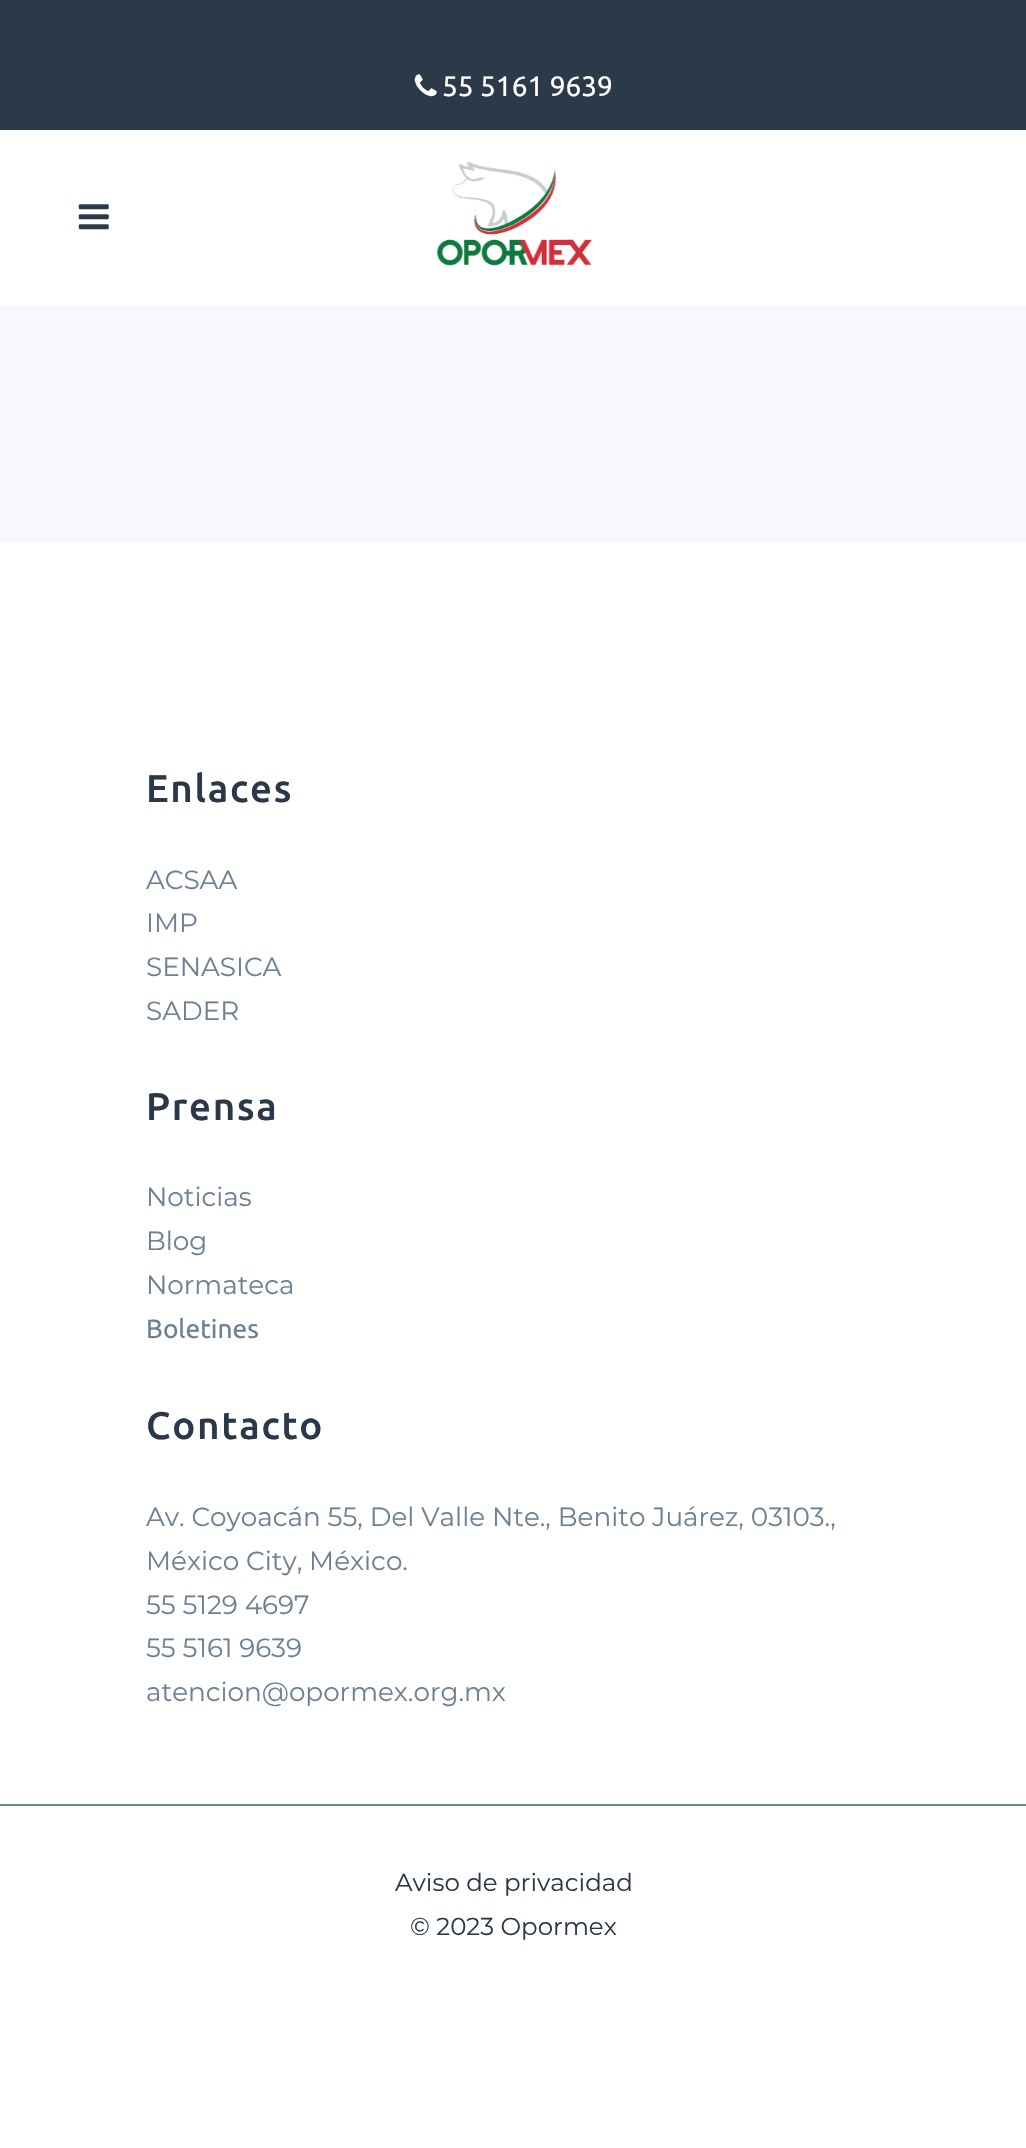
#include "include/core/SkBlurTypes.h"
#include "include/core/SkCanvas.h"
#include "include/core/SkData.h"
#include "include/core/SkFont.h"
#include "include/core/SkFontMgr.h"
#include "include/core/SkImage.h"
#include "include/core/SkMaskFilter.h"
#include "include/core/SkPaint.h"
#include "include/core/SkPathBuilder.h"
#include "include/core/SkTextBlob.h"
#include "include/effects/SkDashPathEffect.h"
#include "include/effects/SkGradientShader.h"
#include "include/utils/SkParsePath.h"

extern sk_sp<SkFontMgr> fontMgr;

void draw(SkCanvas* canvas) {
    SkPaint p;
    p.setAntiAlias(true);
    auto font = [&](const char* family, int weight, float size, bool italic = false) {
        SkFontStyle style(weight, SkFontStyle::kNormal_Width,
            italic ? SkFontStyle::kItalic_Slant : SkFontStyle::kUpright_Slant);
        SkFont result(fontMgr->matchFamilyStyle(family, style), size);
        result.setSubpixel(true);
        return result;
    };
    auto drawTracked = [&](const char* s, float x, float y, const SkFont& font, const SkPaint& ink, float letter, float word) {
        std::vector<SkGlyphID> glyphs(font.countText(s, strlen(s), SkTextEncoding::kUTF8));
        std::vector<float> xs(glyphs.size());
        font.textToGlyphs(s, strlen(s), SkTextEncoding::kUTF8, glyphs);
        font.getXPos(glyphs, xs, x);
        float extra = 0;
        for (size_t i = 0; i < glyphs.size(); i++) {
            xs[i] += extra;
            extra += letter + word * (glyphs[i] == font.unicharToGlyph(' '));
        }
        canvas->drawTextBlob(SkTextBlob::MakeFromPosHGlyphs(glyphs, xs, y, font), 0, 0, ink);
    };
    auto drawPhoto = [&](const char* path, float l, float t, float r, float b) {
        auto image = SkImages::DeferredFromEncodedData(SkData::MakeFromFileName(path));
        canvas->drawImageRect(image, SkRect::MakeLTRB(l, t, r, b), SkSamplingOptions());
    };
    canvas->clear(0xFFF7F9FC);
    p.setColor(0xFF2C3949);
    canvas->drawRect(SkRect::MakeLTRB(0, 0, 1026, 130), p);
    drawPhoto("media/1.png", 414, 74, 437, 97);
    auto font1 = font("Ubuntu", 400, 28);
    p.setColor(0xFFFFFFFF);
    canvas->drawString("55 5161 9639", 442, 96, font1, p);
    canvas->drawRect(SkRect::MakeLTRB(0, 130, 1026, 305), p);
    drawPhoto("media/2.png", 78, 204, 109, 230);
    drawPhoto("media/3.png", 436, 161, 592, 266);
    canvas->drawRect(SkRect::MakeLTRB(0, 543, 1026, 1804), p);
    auto font2 = font("Ubuntu", 500, 38.5f);
    p.setColor(0xFF2B3849);
    drawTracked("Enlaces", 146, 802, font2, p, 1.75f, 0);
    auto font3 = font("Montserrat", 400, 26.25f);
    p.setColor(0xFF6C8194);
    {
        const struct { const char* s; float x, y; } items[] = {
            {"ACSAA", 146, 889},
            {"IMP", 146, 932},
            {"SENASICA", 146, 976},
            {"SADER", 146, 1020},
        };
        for (auto [s, x, y] : items) {
            canvas->drawString(s, x, y, font3, p);
        }
    }
    p.setColor(0xFF2B3849);
    drawTracked("Prensa", 146, 1120, font2, p, 1.75f, 0);
    p.setColor(0xFF6C8194);
    {
        const struct { const char* s; float x, y; } items[] = {
            {"Noticias", 146, 1206},
            {"Blog", 146, 1250},
            {"Normateca", 146, 1294},
        };
        for (auto [s, x, y] : items) {
            canvas->drawString(s, x, y, font3, p);
        }
    }
    auto font4 = font("Ubuntu", 400, 26.25f);
    canvas->drawString("Boletines", 146, 1338, font4, p);
    p.setColor(0xFF2B3849);
    drawTracked("Contacto", 146, 1439, font2, p, 1.75f, 0);
    p.setColor(0xFF6C8194);
    {
        const struct { const char* s; float x, y; } items[] = {
            {"Av. Coyoacán 55, Del Valle Nte., Benito Juárez, 03103.,", 146, 1526},
            {"México City, México.", 146, 1570},
            {"55 5129 4697", 146, 1614},
            {"55 5161 9639", 146, 1657},
            {"atencion@opormex.org.mx", 146, 1701},
        };
        for (auto [s, x, y] : items) {
            canvas->drawString(s, x, y, font3, p);
        }
    }
    p.setColor(0xFFFFFFFF);
    canvas->drawRect(SkRect::MakeLTRB(0, 1806, 1026, 2148), p);
    p.setColor(0xFF6D878C);
    canvas->drawRect(SkRect::MakeLTRB(0, 1804, 1026, 1806), p);
    auto font5 = font("Montserrat", 400, 24.5f);
    p.setColor(0xFF2B3849);
    canvas->drawString("Aviso de privacidad", 395, 1891, font5, p);
    canvas->drawString("© 2023 Opormex", 410, 1935, font5, p);
}
